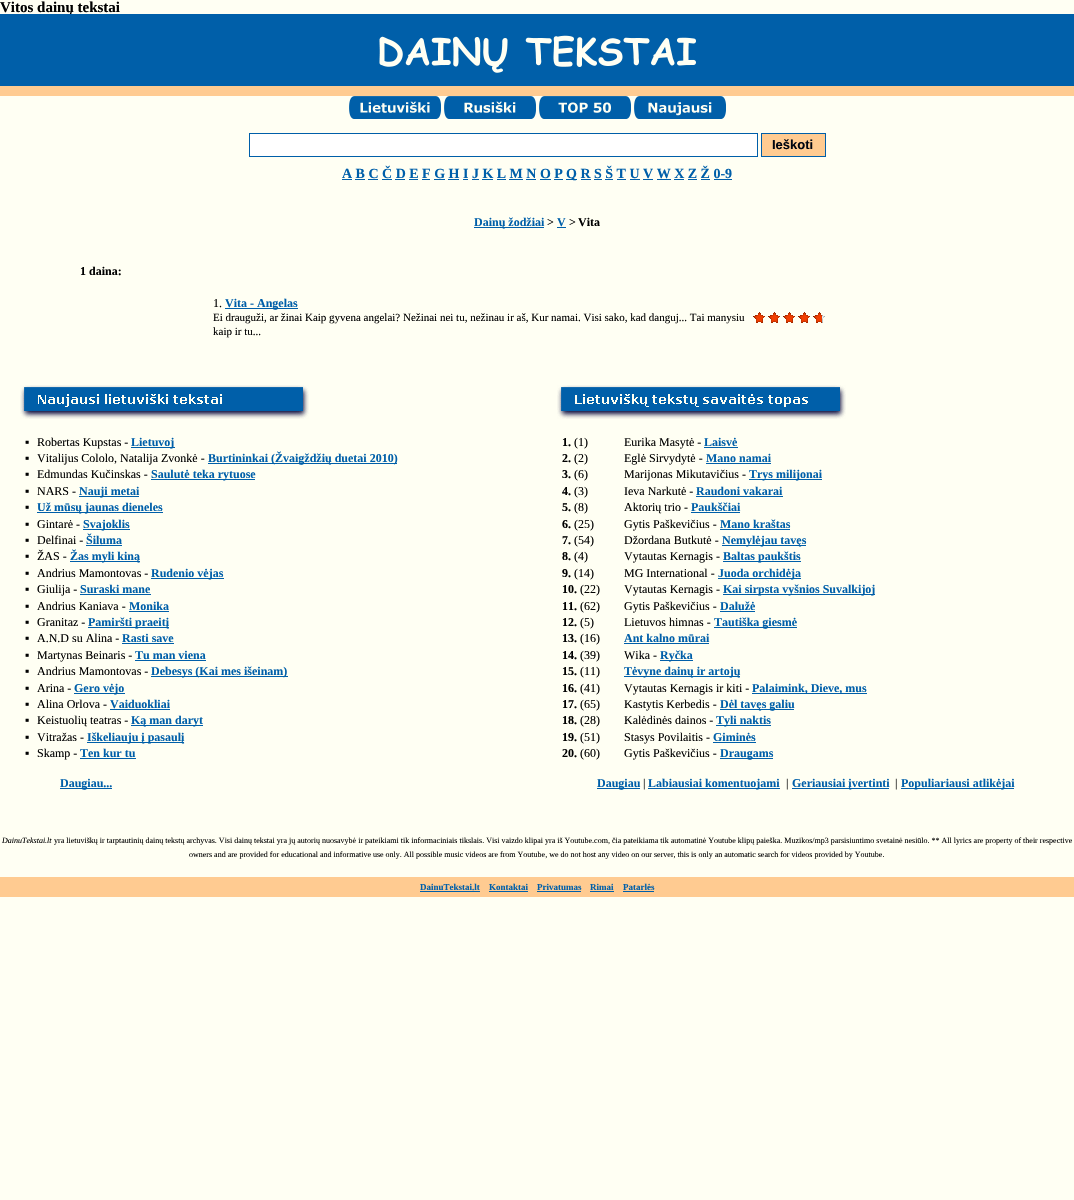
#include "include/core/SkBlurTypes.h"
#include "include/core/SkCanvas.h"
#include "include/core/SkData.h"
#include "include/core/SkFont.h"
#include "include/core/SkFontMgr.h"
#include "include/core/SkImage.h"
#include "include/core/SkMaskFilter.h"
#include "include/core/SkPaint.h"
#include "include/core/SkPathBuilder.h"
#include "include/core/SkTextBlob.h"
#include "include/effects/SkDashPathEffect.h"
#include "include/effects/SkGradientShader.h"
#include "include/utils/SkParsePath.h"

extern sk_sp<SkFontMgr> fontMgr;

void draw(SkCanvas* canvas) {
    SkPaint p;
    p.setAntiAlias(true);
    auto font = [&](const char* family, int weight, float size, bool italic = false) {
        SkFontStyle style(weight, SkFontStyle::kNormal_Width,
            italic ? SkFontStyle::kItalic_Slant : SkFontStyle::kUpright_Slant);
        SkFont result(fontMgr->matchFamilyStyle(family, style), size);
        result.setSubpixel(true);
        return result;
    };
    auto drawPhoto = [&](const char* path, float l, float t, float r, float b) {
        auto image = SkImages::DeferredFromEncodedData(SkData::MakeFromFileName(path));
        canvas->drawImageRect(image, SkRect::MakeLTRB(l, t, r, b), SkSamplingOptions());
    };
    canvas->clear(0xFFFFFFF3);
    auto font1 = font("Liberation Serif", 700, 15);
    p.setColor(0xFF000000);
    canvas->drawString("Vitos dainų tekstai", 0, 12, font1, p);
    p.setColor(0xFF005FA9);
    canvas->drawRect(SkRect::MakeLTRB(0, 14, 1074, 86), p);
    drawPhoto("media/1.png", 379, 35, 696, 73);
    p.setColor(0xFFFFCB91);
    canvas->drawRect(SkRect::MakeLTRB(0, 86, 1074, 96), p);
    drawPhoto("media/2.png", 349, 96, 441, 119);
    drawPhoto("media/3.png", 444, 96, 536, 119);
    drawPhoto("media/4.png", 539, 96, 631, 119);
    drawPhoto("media/5.png", 634, 96, 726, 119);
    p.setColor(0xFFFFFFFF);
    canvas->drawRect(SkRect::MakeLTRB(249.5f, 133.5f, 757.5f, 156.5f), p);
    p.setStyle(SkPaint::kStroke_Style);
    p.setStrokeWidth(1);
    p.setColor(0xFF005FA9);
    canvas->drawRect(SkRect::MakeLTRB(249.5f, 133.5f, 757.5f, 156.5f), p);
    p.setStyle(SkPaint::kFill_Style);
    p.setColor(0xFFFFCB91);
    canvas->drawRect(SkRect::MakeLTRB(761.5f, 133.5f, 825.5f, 156.5f), p);
    p.setStyle(SkPaint::kStroke_Style);
    p.setColor(0xFF005FA9);
    canvas->drawRect(SkRect::MakeLTRB(761.5f, 133.5f, 825.5f, 156.5f), p);
    auto font2 = font("Liberation Sans", 700, 13);
    p.setStyle(SkPaint::kFill_Style);
    p.setColor(0xFF000511);
    canvas->drawString("Ieškoti", 772, 149, font2, p);
    auto font3 = font("Liberation Serif", 700, 14);
    p.setColor(0xFF005FA9);
    canvas->drawString("A B C Č D E F G H I J K L M N O P", 342, 178, font3, p);
    canvas->drawRect(SkRect::MakeLTRB(342, 179, 352, 180), p);
    canvas->drawRect(SkRect::MakeLTRB(566, 179, 577, 180), p);
    canvas->drawString("Q R S Š T U V W X Z Ž 0-9", 566, 178, font3, p);
    {
        const struct { float l, t, r, b; SkColor color; } items[] = {
            {355, 179, 365, 180, 0xFF005FA9},
            {368, 179, 378, 180, 0xFF005FA9},
            {382, 179, 392, 180, 0xFF005FA9},
            {395, 179, 405, 180, 0xFF005FA9},
            {409, 179, 418, 180, 0xFF005FA9},
            {422, 179, 430, 180, 0xFF005FA9},
            {434, 179, 445, 180, 0xFF005FA9},
            {448, 179, 459, 180, 0xFF005FA9},
            {463, 179, 468, 180, 0xFF005FA9},
            {472, 179, 479, 180, 0xFF005FA9},
            {482, 179, 493, 180, 0xFF005FA9},
            {497, 179, 506, 180, 0xFF005FA9},
            {509, 179, 523, 180, 0xFF005FA9},
            {526, 179, 536, 180, 0xFF005FA9},
            {540, 179, 551, 180, 0xFF005FA9},
            {554, 179, 563, 180, 0xFF005FA9},
            {581, 179, 591, 180, 0xFF005FA9},
            {594, 179, 602, 180, 0xFF005FA9},
            {605, 179, 613, 180, 0xFF005FA9},
            {617, 179, 626, 180, 0xFF005FA9},
            {630, 179, 640, 180, 0xFF005FA9},
            {643, 179, 653, 180, 0xFF005FA9},
            {657, 179, 671, 180, 0xFF005FA9},
            {674, 179, 684, 180, 0xFF005FA9},
            {688, 179, 697, 180, 0xFF005FA9},
            {701, 179, 710, 180, 0xFF005FA9},
            {714, 179, 732, 180, 0xFF005FA9},
            {474, 227, 544, 228, 0xFF005FA9},
        };
        for (auto [l, t, r, b, color] : items) {
            p.setColor(color);
            canvas->drawRect(SkRect::MakeLTRB(l, t, r, b), p);
        }
    }
    auto font4 = font("Liberation Serif", 700, 12);
    canvas->drawString("Dainų žodžiai", 474, 226, font4, p);
    auto font5 = font("Liberation Serif", 400, 12);
    p.setColor(0xFF000000);
    canvas->drawString(">", 547, 226, font5, p);
    p.setColor(0xFF005FA9);
    canvas->drawString("V", 557, 226, font4, p);
    canvas->drawRect(SkRect::MakeLTRB(557, 227, 566, 228), p);
    p.setColor(0xFF000000);
    canvas->drawString(">", 569, 226, font5, p);
    canvas->drawString("Vita", 578, 226, font4, p);
    canvas->drawString("1 daina:", 80, 275, font4, p);
    canvas->drawString("1.", 213, 307, font5, p);
    p.setColor(0xFF005FA9);
    canvas->drawRect(SkRect::MakeLTRB(225, 308, 298, 309), p);
    canvas->drawString("Vita - Angelas", 225, 307, font4, p);
    auto font6 = font("Liberation Serif", 400, 11);
    p.setColor(0xFF000000);
    canvas->drawString("Ei drauguži, ar žinai Kaip gyvena angelai? Nežinai nei tu, nežinau ir aš, Kur namai. Visi sako, kad danguj... Tai manysiu", 213, 321, font6, p);
    canvas->drawString("kaip ir tu...", 213, 335, font6, p);
    drawPhoto("media/6.png", 822, 315, 825, 323);
    drawPhoto("media/7.png", 753, 312, 822, 323);
    drawPhoto("media/8.png", 20, 385, 309, 419);
    canvas->drawString("▪", 25, 446, font4, p);
    canvas->drawString("Robertas Kupstas -", 37, 446, font5, p);
    p.setColor(0xFF005FA9);
    canvas->drawRect(SkRect::MakeLTRB(131, 447, 175, 448), p);
    canvas->drawString("Lietuvoj", 131, 446, font4, p);
    p.setColor(0xFF000000);
    canvas->drawString("▪", 25, 462, font4, p);
    canvas->drawString("Vitalijus Cololo, Natalija Zvonkė -", 37, 462, font5, p);
    p.setColor(0xFF005FA9);
    canvas->drawRect(SkRect::MakeLTRB(208, 463, 397, 464), p);
    canvas->drawString("Burtininkai (Žvaigždžių duetai 2010)", 208, 462, font4, p);
    p.setColor(0xFF000000);
    canvas->drawString("▪", 25, 478, font4, p);
    canvas->drawString("Edmundas Kučinskas -", 37, 478, font5, p);
    p.setColor(0xFF005FA9);
    canvas->drawRect(SkRect::MakeLTRB(151, 479, 255, 480), p);
    canvas->drawString("Saulutė teka rytuose", 151, 478, font4, p);
    p.setColor(0xFF000000);
    canvas->drawString("▪", 25, 495, font4, p);
    canvas->drawString("NARS -", 37, 495, font5, p);
    p.setColor(0xFF005FA9);
    canvas->drawRect(SkRect::MakeLTRB(79, 496, 139, 497), p);
    canvas->drawString("Nauji metai", 79, 495, font4, p);
    p.setColor(0xFF000000);
    canvas->drawString("▪", 25, 511, font4, p);
    p.setColor(0xFF005FA9);
    canvas->drawRect(SkRect::MakeLTRB(37, 512, 163, 513), p);
    canvas->drawString("Už mūsų jaunas dieneles", 37, 511, font4, p);
    p.setColor(0xFF000000);
    canvas->drawString("▪", 25, 528, font4, p);
    canvas->drawString("Gintarė -", 37, 528, font5, p);
    p.setColor(0xFF005FA9);
    canvas->drawRect(SkRect::MakeLTRB(83, 529, 130, 530), p);
    canvas->drawString("Svajoklis", 83, 528, font4, p);
    p.setColor(0xFF000000);
    canvas->drawString("▪", 25, 544, font4, p);
    canvas->drawString("Delfinai -", 37, 544, font5, p);
    p.setColor(0xFF005FA9);
    canvas->drawString("Šiluma", 86, 544, font4, p);
    canvas->drawRect(SkRect::MakeLTRB(86, 545, 122, 546), p);
    p.setColor(0xFF000000);
    canvas->drawString("▪", 25, 560, font4, p);
    canvas->drawString("ŽAS -", 37, 560, font5, p);
    p.setColor(0xFF005FA9);
    canvas->drawRect(SkRect::MakeLTRB(70, 561, 140, 562), p);
    canvas->drawString("Žas myli kiną", 70, 560, font4, p);
    p.setColor(0xFF000000);
    canvas->drawString("▪", 25, 577, font4, p);
    canvas->drawString("Andrius Mamontovas -", 37, 577, font5, p);
    p.setColor(0xFF005FA9);
    canvas->drawRect(SkRect::MakeLTRB(151, 578, 224, 579), p);
    canvas->drawString("Rudenio vėjas", 151, 577, font4, p);
    p.setColor(0xFF000000);
    canvas->drawString("▪", 25, 593, font4, p);
    canvas->drawString("Giulija -", 37, 593, font5, p);
    p.setColor(0xFF005FA9);
    canvas->drawString("Suraski mane", 80, 593, font4, p);
    canvas->drawRect(SkRect::MakeLTRB(80, 594, 151, 595), p);
    p.setColor(0xFF000000);
    canvas->drawString("▪", 25, 610, font4, p);
    canvas->drawString("Andrius Kaniava -", 37, 610, font5, p);
    p.setColor(0xFF005FA9);
    canvas->drawString("Monika", 129, 610, font4, p);
    canvas->drawRect(SkRect::MakeLTRB(129, 611, 169, 612), p);
    p.setColor(0xFF000000);
    canvas->drawString("▪", 25, 626, font4, p);
    canvas->drawString("Granitaz -", 37, 626, font5, p);
    p.setColor(0xFF005FA9);
    canvas->drawRect(SkRect::MakeLTRB(88, 627, 169, 628), p);
    canvas->drawString("Pamiršti praeitį", 88, 626, font4, p);
    p.setColor(0xFF000000);
    canvas->drawString("▪", 25, 642, font4, p);
    canvas->drawString("A.N.D su Alina -", 37, 642, font5, p);
    p.setColor(0xFF005FA9);
    canvas->drawString("Rasti save", 122, 642, font4, p);
    canvas->drawRect(SkRect::MakeLTRB(122, 643, 174, 644), p);
    p.setColor(0xFF000000);
    canvas->drawString("▪", 25, 659, font4, p);
    canvas->drawString("Martynas Beinaris -", 37, 659, font5, p);
    p.setColor(0xFF005FA9);
    canvas->drawString("Tu man viena", 135, 659, font4, p);
    canvas->drawRect(SkRect::MakeLTRB(135, 660, 206, 661), p);
    p.setColor(0xFF000000);
    canvas->drawString("▪", 25, 675, font4, p);
    canvas->drawString("Andrius Mamontovas -", 37, 675, font5, p);
    p.setColor(0xFF005FA9);
    canvas->drawRect(SkRect::MakeLTRB(151, 676, 288, 677), p);
    canvas->drawString("Debesys (Kai mes išeinam)", 151, 675, font4, p);
    p.setColor(0xFF000000);
    canvas->drawString("▪", 25, 692, font4, p);
    canvas->drawString("Arina -", 37, 692, font5, p);
    p.setColor(0xFF005FA9);
    canvas->drawRect(SkRect::MakeLTRB(74, 693, 125, 694), p);
    canvas->drawString("Gero vėjo", 74, 692, font4, p);
    p.setColor(0xFF000000);
    canvas->drawString("▪", 25, 708, font4, p);
    canvas->drawString("Alina Orlova -", 37, 708, font5, p);
    p.setColor(0xFF005FA9);
    canvas->drawString("Vaiduokliai", 110, 708, font4, p);
    canvas->drawRect(SkRect::MakeLTRB(110, 709, 170, 710), p);
    p.setColor(0xFF000000);
    canvas->drawString("▪", 25, 724, font4, p);
    canvas->drawString("Keistuolių teatras -", 37, 724, font5, p);
    p.setColor(0xFF005FA9);
    canvas->drawRect(SkRect::MakeLTRB(131, 725, 203, 726), p);
    canvas->drawString("Ką man daryt", 131, 724, font4, p);
    p.setColor(0xFF000000);
    canvas->drawString("▪", 25, 741, font4, p);
    canvas->drawString("Vitražas -", 37, 741, font5, p);
    p.setColor(0xFF005FA9);
    canvas->drawRect(SkRect::MakeLTRB(87, 742, 184, 743), p);
    canvas->drawString("Iškeliauju į pasaulį", 87, 741, font4, p);
    p.setColor(0xFF000000);
    canvas->drawString("▪", 25, 757, font4, p);
    canvas->drawString("Skamp -", 37, 757, font5, p);
    p.setColor(0xFF005FA9);
    canvas->drawString("Ten kur tu", 80, 757, font4, p);
    canvas->drawRect(SkRect::MakeLTRB(80, 758, 136, 759), p);
    canvas->drawRect(SkRect::MakeLTRB(60, 788, 112, 789), p);
    canvas->drawString("Daugiau...", 60, 787, font4, p);
    drawPhoto("media/9.png", 557, 385, 846, 419);
    p.setColor(0xFF000000);
    canvas->drawString("1.", 562, 446, font4, p);
    canvas->drawString("(1)", 574, 446, font5, p);
    canvas->drawString("Eurika Masytė -", 624, 446, font5, p);
    p.setColor(0xFF005FA9);
    canvas->drawString("Laisvė", 704, 446, font4, p);
    canvas->drawRect(SkRect::MakeLTRB(704, 447, 738, 448), p);
    p.setColor(0xFF000000);
    canvas->drawString("2.", 562, 462, font4, p);
    canvas->drawString("(2)", 574, 462, font5, p);
    canvas->drawString("Eglė Sirvydytė -", 624, 462, font5, p);
    p.setColor(0xFF005FA9);
    canvas->drawString("Mano namai", 706, 462, font4, p);
    canvas->drawRect(SkRect::MakeLTRB(706, 463, 771, 464), p);
    p.setColor(0xFF000000);
    canvas->drawString("3.", 562, 478, font4, p);
    canvas->drawString("(6)", 574, 478, font5, p);
    canvas->drawString("Marijonas Mikutavičius -", 624, 478, font5, p);
    p.setColor(0xFF005FA9);
    canvas->drawRect(SkRect::MakeLTRB(749, 479, 822, 480), p);
    canvas->drawString("Trys milijonai", 749, 478, font4, p);
    p.setColor(0xFF000000);
    canvas->drawString("4.", 562, 495, font4, p);
    canvas->drawString("(3)", 574, 495, font5, p);
    canvas->drawString("Ieva Narkutė -", 624, 495, font5, p);
    p.setColor(0xFF005FA9);
    canvas->drawString("Raudoni vakarai", 696, 495, font4, p);
    canvas->drawRect(SkRect::MakeLTRB(696, 496, 783, 497), p);
    p.setColor(0xFF000000);
    canvas->drawString("5.", 562, 511, font4, p);
    canvas->drawString("(8)", 574, 511, font5, p);
    canvas->drawString("Aktorių trio -", 624, 511, font5, p);
    p.setColor(0xFF005FA9);
    canvas->drawString("Paukščiai", 691, 511, font4, p);
    canvas->drawRect(SkRect::MakeLTRB(691, 512, 740, 513), p);
    p.setColor(0xFF000000);
    canvas->drawString("6.", 562, 528, font4, p);
    canvas->drawString("(25)", 574, 528, font5, p);
    canvas->drawString("Gytis Paškevičius -", 624, 528, font5, p);
    p.setColor(0xFF005FA9);
    canvas->drawString("Mano kraštas", 720, 528, font4, p);
    canvas->drawRect(SkRect::MakeLTRB(720, 529, 790, 530), p);
    p.setColor(0xFF000000);
    canvas->drawString("7.", 562, 544, font4, p);
    canvas->drawString("(54)", 574, 544, font5, p);
    canvas->drawString("Džordana Butkutė -", 624, 544, font5, p);
    p.setColor(0xFF005FA9);
    canvas->drawRect(SkRect::MakeLTRB(722, 545, 806, 546), p);
    canvas->drawString("Nemylėjau tavęs", 722, 544, font4, p);
    p.setColor(0xFF000000);
    canvas->drawString("8.", 562, 560, font4, p);
    canvas->drawString("(4)", 574, 560, font5, p);
    canvas->drawString("Vytautas Kernagis -", 624, 560, font5, p);
    p.setColor(0xFF005FA9);
    canvas->drawRect(SkRect::MakeLTRB(723, 561, 801, 562), p);
    canvas->drawString("Baltas paukštis", 723, 560, font4, p);
    p.setColor(0xFF000000);
    canvas->drawString("9.", 562, 577, font4, p);
    canvas->drawString("(14)", 574, 577, font5, p);
    canvas->drawString("MG International -", 624, 577, font5, p);
    p.setColor(0xFF005FA9);
    canvas->drawRect(SkRect::MakeLTRB(718, 578, 801, 579), p);
    canvas->drawString("Juoda orchidėja", 718, 577, font4, p);
    p.setColor(0xFF000000);
    canvas->drawString("10.", 562, 593, font4, p);
    canvas->drawString("(22)", 580, 593, font5, p);
    canvas->drawString("Vytautas Kernagis -", 624, 593, font5, p);
    p.setColor(0xFF005FA9);
    canvas->drawRect(SkRect::MakeLTRB(723, 594, 875, 595), p);
    canvas->drawString("Kai sirpsta vyšnios Suvalkijoj", 723, 593, font4, p);
    p.setColor(0xFF000000);
    canvas->drawString("11.", 562, 610, font4, p);
    canvas->drawString("(62)", 580, 610, font5, p);
    canvas->drawString("Gytis Paškevičius -", 624, 610, font5, p);
    p.setColor(0xFF005FA9);
    canvas->drawString("Dalužė", 720, 610, font4, p);
    canvas->drawRect(SkRect::MakeLTRB(720, 611, 755, 612), p);
    p.setColor(0xFF000000);
    canvas->drawString("12.", 562, 626, font4, p);
    canvas->drawString("(5)", 580, 626, font5, p);
    canvas->drawString("Lietuvos himnas -", 624, 626, font5, p);
    p.setColor(0xFF005FA9);
    canvas->drawRect(SkRect::MakeLTRB(714, 627, 797, 628), p);
    canvas->drawString("Tautiška giesmė", 714, 626, font4, p);
    p.setColor(0xFF000000);
    canvas->drawString("13.", 562, 642, font4, p);
    canvas->drawString("(16)", 580, 642, font5, p);
    p.setColor(0xFF005FA9);
    canvas->drawString("Ant kalno mūrai", 624, 642, font4, p);
    canvas->drawRect(SkRect::MakeLTRB(624, 643, 709, 644), p);
    p.setColor(0xFF000000);
    canvas->drawString("14.", 562, 659, font4, p);
    canvas->drawString("(39)", 580, 659, font5, p);
    canvas->drawString("Wika -", 624, 659, font5, p);
    p.setColor(0xFF005FA9);
    canvas->drawRect(SkRect::MakeLTRB(660, 660, 693, 661), p);
    canvas->drawString("Ryčka", 660, 659, font4, p);
    p.setColor(0xFF000000);
    canvas->drawString("15.", 562, 675, font4, p);
    canvas->drawString("(11)", 580, 675, font5, p);
    p.setColor(0xFF005FA9);
    canvas->drawRect(SkRect::MakeLTRB(624, 676, 740, 677), p);
    canvas->drawString("Tėvyne dainų ir artojų", 624, 675, font4, p);
    p.setColor(0xFF000000);
    canvas->drawString("16.", 562, 692, font4, p);
    canvas->drawString("(41)", 580, 692, font5, p);
    canvas->drawString("Vytautas Kernagis ir kiti -", 624, 692, font5, p);
    p.setColor(0xFF005FA9);
    canvas->drawRect(SkRect::MakeLTRB(752, 693, 867, 694), p);
    canvas->drawString("Palaimink, Dieve, mus", 752, 692, font4, p);
    p.setColor(0xFF000000);
    canvas->drawString("17.", 562, 708, font4, p);
    canvas->drawString("(65)", 580, 708, font5, p);
    canvas->drawString("Kastytis Kerbedis -", 624, 708, font5, p);
    p.setColor(0xFF005FA9);
    canvas->drawRect(SkRect::MakeLTRB(720, 709, 794, 710), p);
    canvas->drawString("Dėl tavęs galiu", 720, 708, font4, p);
    p.setColor(0xFF000000);
    canvas->drawString("18.", 562, 724, font4, p);
    canvas->drawString("(28)", 580, 724, font5, p);
    canvas->drawString("Kalėdinės dainos -", 624, 724, font5, p);
    p.setColor(0xFF005FA9);
    canvas->drawRect(SkRect::MakeLTRB(716, 725, 771, 726), p);
    canvas->drawString("Tyli naktis", 716, 724, font4, p);
    p.setColor(0xFF000000);
    canvas->drawString("19.", 562, 741, font4, p);
    canvas->drawString("(51)", 580, 741, font5, p);
    canvas->drawString("Stasys Povilaitis -", 624, 741, font5, p);
    p.setColor(0xFF005FA9);
    canvas->drawString("Giminės", 713, 741, font4, p);
    canvas->drawRect(SkRect::MakeLTRB(713, 742, 756, 743), p);
    p.setColor(0xFF000000);
    canvas->drawString("20.", 562, 757, font4, p);
    canvas->drawString("(60)", 580, 757, font5, p);
    canvas->drawString("Gytis Paškevičius -", 624, 757, font5, p);
    p.setColor(0xFF005FA9);
    canvas->drawRect(SkRect::MakeLTRB(720, 758, 773, 759), p);
    canvas->drawString("Draugams", 720, 757, font4, p);
    canvas->drawRect(SkRect::MakeLTRB(597, 788, 640, 789), p);
    canvas->drawString("Daugiau", 597, 787, font4, p);
    p.setColor(0xFF000000);
    canvas->drawString("|", 643, 787, font5, p);
    p.setColor(0xFF005FA9);
    canvas->drawRect(SkRect::MakeLTRB(648, 788, 780, 789), p);
    canvas->drawString("Labiausiai komentuojami", 648, 787, font4, p);
    p.setColor(0xFF000000);
    canvas->drawString("|", 786, 787, font5, p);
    p.setColor(0xFF005FA9);
    canvas->drawRect(SkRect::MakeLTRB(792, 788, 889, 789), p);
    canvas->drawString("Geriausiai įvertinti", 792, 787, font4, p);
    p.setColor(0xFF000000);
    canvas->drawString("|", 895, 787, font5, p);
    p.setColor(0xFF005FA9);
    canvas->drawRect(SkRect::MakeLTRB(901, 788, 1014, 789), p);
    canvas->drawString("Populiariausi atlikėjai", 901, 787, font4, p);
    auto font7 = font("Liberation Serif", 400, 8, true);
    p.setColor(0xFF000000);
    canvas->drawString("DainuTekstai.lt", 2, 843, font7, p);
    auto font8 = font("Liberation Serif", 400, 8);
    canvas->drawString("yra lietuviškų ir tarptautinių dainų tekstų archyvas. Visi dainų tekstai yra jų autorių nuosavybė ir pateikiami tik informaciniais tikslais. Visi vaizdo klipai yra iš Youtube.com, čia pateikiama tik automatinė Youtube klipų paieška. Muzikos/mp3 parsisiuntimo svetainė nesiūlo. ** All lyrics are property of their respective", 54, 843, font8, p);
    canvas->drawString("owners and are provided for educational and informative use only. All possible music videos are from Youtube, we do not host any video on our server, this is only an automatic search for videos provided by Youtube.", 189, 857, font8, p);
    p.setColor(0xFFFFCB91);
    canvas->drawRect(SkRect::MakeLTRB(0, 877, 1074, 897), p);
    auto font9 = font("Liberation Serif", 700, 9);
    p.setColor(0xFF005FA9);
    canvas->drawString("DainuTekstai.lt", 420, 890, font9, p);
    canvas->drawRect(SkRect::MakeLTRB(420, 891, 480, 892), p);
    canvas->drawString("Kontaktai", 489, 890, font9, p);
    canvas->drawRect(SkRect::MakeLTRB(489, 891, 528, 892), p);
    canvas->drawString("Privatumas", 537, 890, font9, p);
    canvas->drawRect(SkRect::MakeLTRB(537, 891, 581, 892), p);
    canvas->drawString("Rimai", 590, 890, font9, p);
    canvas->drawRect(SkRect::MakeLTRB(590, 891, 614, 892), p);
    canvas->drawString("Patarlės", 623, 890, font9, p);
    canvas->drawRect(SkRect::MakeLTRB(623, 891, 654, 892), p);
}
